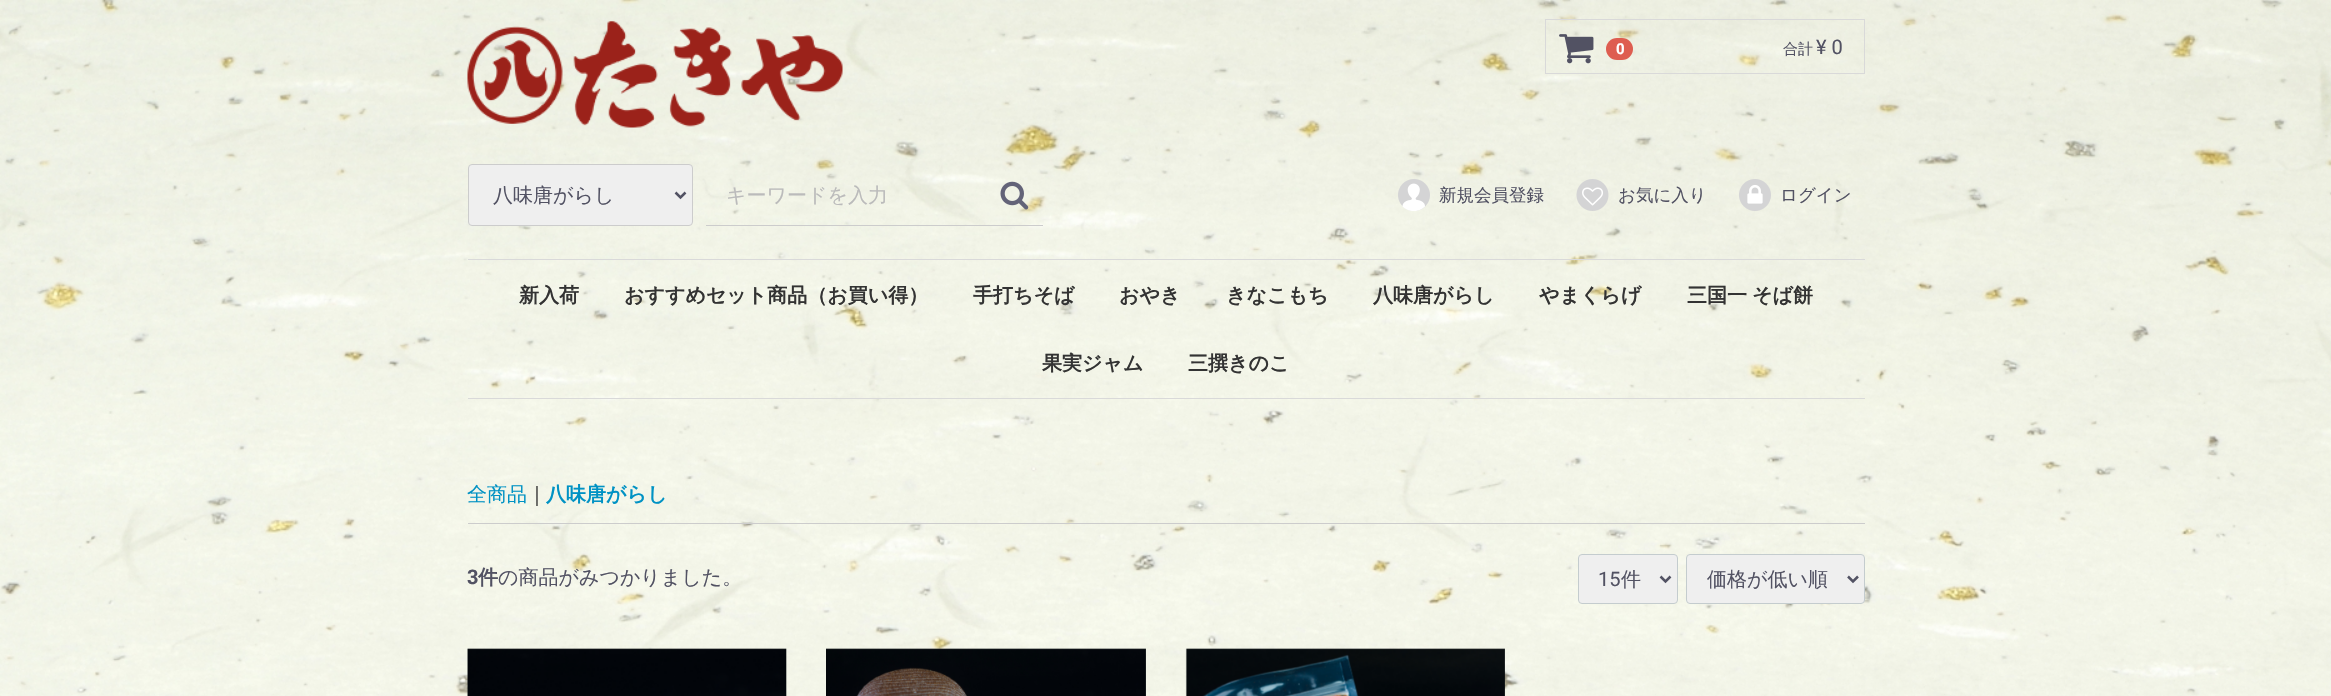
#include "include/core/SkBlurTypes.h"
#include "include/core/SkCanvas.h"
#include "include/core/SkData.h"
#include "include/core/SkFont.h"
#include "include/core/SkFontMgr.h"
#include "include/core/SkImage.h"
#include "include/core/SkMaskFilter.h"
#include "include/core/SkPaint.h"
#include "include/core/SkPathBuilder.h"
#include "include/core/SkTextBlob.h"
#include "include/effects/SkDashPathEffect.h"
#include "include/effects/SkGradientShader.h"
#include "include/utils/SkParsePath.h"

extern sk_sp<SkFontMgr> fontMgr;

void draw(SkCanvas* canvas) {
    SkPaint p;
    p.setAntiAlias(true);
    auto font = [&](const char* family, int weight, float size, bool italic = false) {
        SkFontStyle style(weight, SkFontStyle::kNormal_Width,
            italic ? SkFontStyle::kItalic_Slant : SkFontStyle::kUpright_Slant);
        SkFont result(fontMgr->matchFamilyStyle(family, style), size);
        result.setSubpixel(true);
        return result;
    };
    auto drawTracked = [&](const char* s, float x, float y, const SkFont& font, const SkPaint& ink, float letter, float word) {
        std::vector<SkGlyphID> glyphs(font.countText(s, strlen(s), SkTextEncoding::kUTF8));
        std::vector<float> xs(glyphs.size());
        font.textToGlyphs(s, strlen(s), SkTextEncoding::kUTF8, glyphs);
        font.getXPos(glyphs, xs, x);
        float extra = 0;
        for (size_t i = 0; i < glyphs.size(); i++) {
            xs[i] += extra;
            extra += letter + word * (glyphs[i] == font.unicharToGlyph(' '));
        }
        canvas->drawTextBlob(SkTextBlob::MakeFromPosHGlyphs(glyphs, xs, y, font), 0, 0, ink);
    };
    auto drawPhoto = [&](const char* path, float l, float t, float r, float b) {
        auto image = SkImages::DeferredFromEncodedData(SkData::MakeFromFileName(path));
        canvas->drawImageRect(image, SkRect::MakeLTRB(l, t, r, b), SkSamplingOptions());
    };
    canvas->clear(0xFFFFFFFF);
    drawPhoto("media/1.png", 0, 0, 2331, 696);
    drawPhoto("media/2.png", 467, 21, 843, 128);
    p.setStyle(SkPaint::kStroke_Style);
    p.setStrokeWidth(1);
    p.setColor(0xFFD9D9D9);
    canvas->drawRect(SkRect::MakeLTRB(1545.5f, 19.5f, 1864.5f, 73.5f), p);
    drawPhoto("media/3.png", 1559, 34, 1594, 64);
    p.setStyle(SkPaint::kFill_Style);
    p.setColor(0xFFDE5D50);
    canvas->drawRoundRect(SkRect::MakeLTRB(1606, 38, 1633, 60), 11, 11, p);
    auto font1 = font("Roboto", 700, 15);
    p.setColor(0xFFFFFFFF);
    canvas->drawString("0", 1616, 54, font1, p);
    auto font2 = font("WenQuanYi Zen Hei", 500, 15);
    p.setColor(0xFF525263);
    canvas->drawString("合計", 1783, 54, font2, p);
    auto font3 = font("Roboto", 400, 20);
    canvas->drawString("¥ 0", 1816, 54, font3, p);
    p.setColor(0xFFEFEFEF);
    canvas->drawRoundRect(SkRect::MakeLTRB(468.5f, 164.5f, 692.5f, 225.5f), 3.5f, 3.5f, p);
    p.setStyle(SkPaint::kStroke_Style);
    p.setColor(0xFFCCCCCC);
    canvas->drawRoundRect(SkRect::MakeLTRB(468.5f, 164.5f, 692.5f, 225.5f), 3.5f, 3.5f, p);
    p.setStrokeWidth(2.5f);
    p.setColor(0xFF525263);
    canvas->drawPath(SkPathBuilder().moveTo(675.5f, 192.5f).lineTo(680.5f, 197.5f).lineTo(685.5f, 192.5f).detach(), p);
    auto font4 = font("WenQuanYi Zen Hei", 500, 20);
    p.setStyle(SkPaint::kFill_Style);
    canvas->drawString("八味唐がらし", 493, 202, font4, p);
    p.setColor(0xFFCCCCCC);
    canvas->drawRect(SkRect::MakeLTRB(706, 225, 1043, 226), p);
    p.setColor(0xFFBBBBBB);
    canvas->drawString("キーワードを入力", 726, 202, font4, p);
    drawPhoto("media/4.png", 1000, 181, 1029, 210);
    drawPhoto("media/5.png", 1398, 179, 1430, 211);
    auto font5 = font("WenQuanYi Zen Hei", 500, 17.5f);
    p.setColor(0xFF525263);
    canvas->drawString("新規会員登録", 1439, 201, font5, p);
    drawPhoto("media/6.png", 1576, 179, 1609, 211);
    canvas->drawString("お気に入り", 1618, 201, font5, p);
    drawPhoto("media/7.png", 1739, 179, 1771, 211);
    canvas->drawString("ログイン", 1780, 201, font5, p);
    p.setColor(0xFFD9D9D9);
    canvas->drawRect(SkRect::MakeLTRB(468, 259, 1865, 260), p);
    canvas->drawRect(SkRect::MakeLTRB(468, 398, 1865, 399), p);
    auto font6 = font("WenQuanYi Zen Hei", 700, 20);
    p.setColor(0xFF333333);
    {
        const struct { const char* s; float x, y; } items[] = {
            {"新入荷", 519, 302},
            {"おすすめセット商品（お買い得）", 624, 302},
            {"手打ちそば", 973, 302},
            {"おやき", 1119, 302},
            {"きなこもち", 1226, 302},
            {"八味唐がらし", 1373, 302},
            {"やまくらげ", 1539, 302},
        };
        for (auto [s, x, y] : items) {
            canvas->drawString(s, x, y, font6, p);
        }
    }
    drawTracked("三国一 そば餅", 1687, 302, font6, p, 0, -1);
    canvas->drawString("果実ジャム", 1042, 370, font6, p);
    canvas->drawString("三撰きのこ", 1188, 370, font6, p);
    p.setColor(0xFFCCCCCC);
    canvas->drawRect(SkRect::MakeLTRB(468, 523, 1865, 524), p);
    p.setColor(0xFF0092C4);
    canvas->drawString("全商品", 467, 501, font4, p);
    p.setColor(0xFF333333);
    canvas->drawString("｜", 527, 501, font4, p);
    p.setColor(0xFF0092C4);
    canvas->drawString("八味唐がらし", 546, 501, font6, p);
    auto font7 = font("Roboto", 700, 20);
    p.setColor(0xFF525263);
    canvas->drawString("3", 467, 584, font7, p);
    canvas->drawString("件", 478, 584, font6, p);
    canvas->drawString("の商品がみつかりました。", 498, 584, font4, p);
    p.setColor(0xFFEFEFEF);
    canvas->drawRoundRect(SkRect::MakeLTRB(1578.5f, 554.5f, 1677.5f, 603.5f), 3.5f, 3.5f, p);
    p.setStyle(SkPaint::kStroke_Style);
    p.setStrokeWidth(1);
    p.setColor(0xFFC4CCCE);
    canvas->drawRoundRect(SkRect::MakeLTRB(1578.5f, 554.5f, 1677.5f, 603.5f), 3.5f, 3.5f, p);
    p.setStrokeWidth(2.5f);
    p.setColor(0xFF525263);
    canvas->drawPath(SkPathBuilder().moveTo(1660.5f, 576.5f).lineTo(1665.5f, 581.5f).lineTo(1670.5f, 576.5f).detach(), p);
    p.setStyle(SkPaint::kFill_Style);
    canvas->drawString("15", 1598, 586, font3, p);
    canvas->drawString("件", 1621, 586, font4, p);
    p.setColor(0xFFEFEFEF);
    canvas->drawRoundRect(SkRect::MakeLTRB(1686.5f, 554.5f, 1864.5f, 603.5f), 3.5f, 3.5f, p);
    p.setStyle(SkPaint::kStroke_Style);
    p.setStrokeWidth(1);
    p.setColor(0xFFC4CCCE);
    canvas->drawRoundRect(SkRect::MakeLTRB(1686.5f, 554.5f, 1864.5f, 603.5f), 3.5f, 3.5f, p);
    p.setStrokeWidth(2.5f);
    p.setColor(0xFF525263);
    canvas->drawPath(SkPathBuilder().moveTo(1848, 576.5f).lineTo(1853, 581.5f).lineTo(1858, 576.5f).detach(), p);
    p.setStyle(SkPaint::kFill_Style);
    canvas->drawString("価格が低い順", 1707, 586, font4, p);
    drawPhoto("media/8.png", 467, 648, 787, 696);
    drawPhoto("media/9.png", 826, 648, 1146, 696);
    drawPhoto("media/10.png", 1185, 648, 1505, 696);
}
